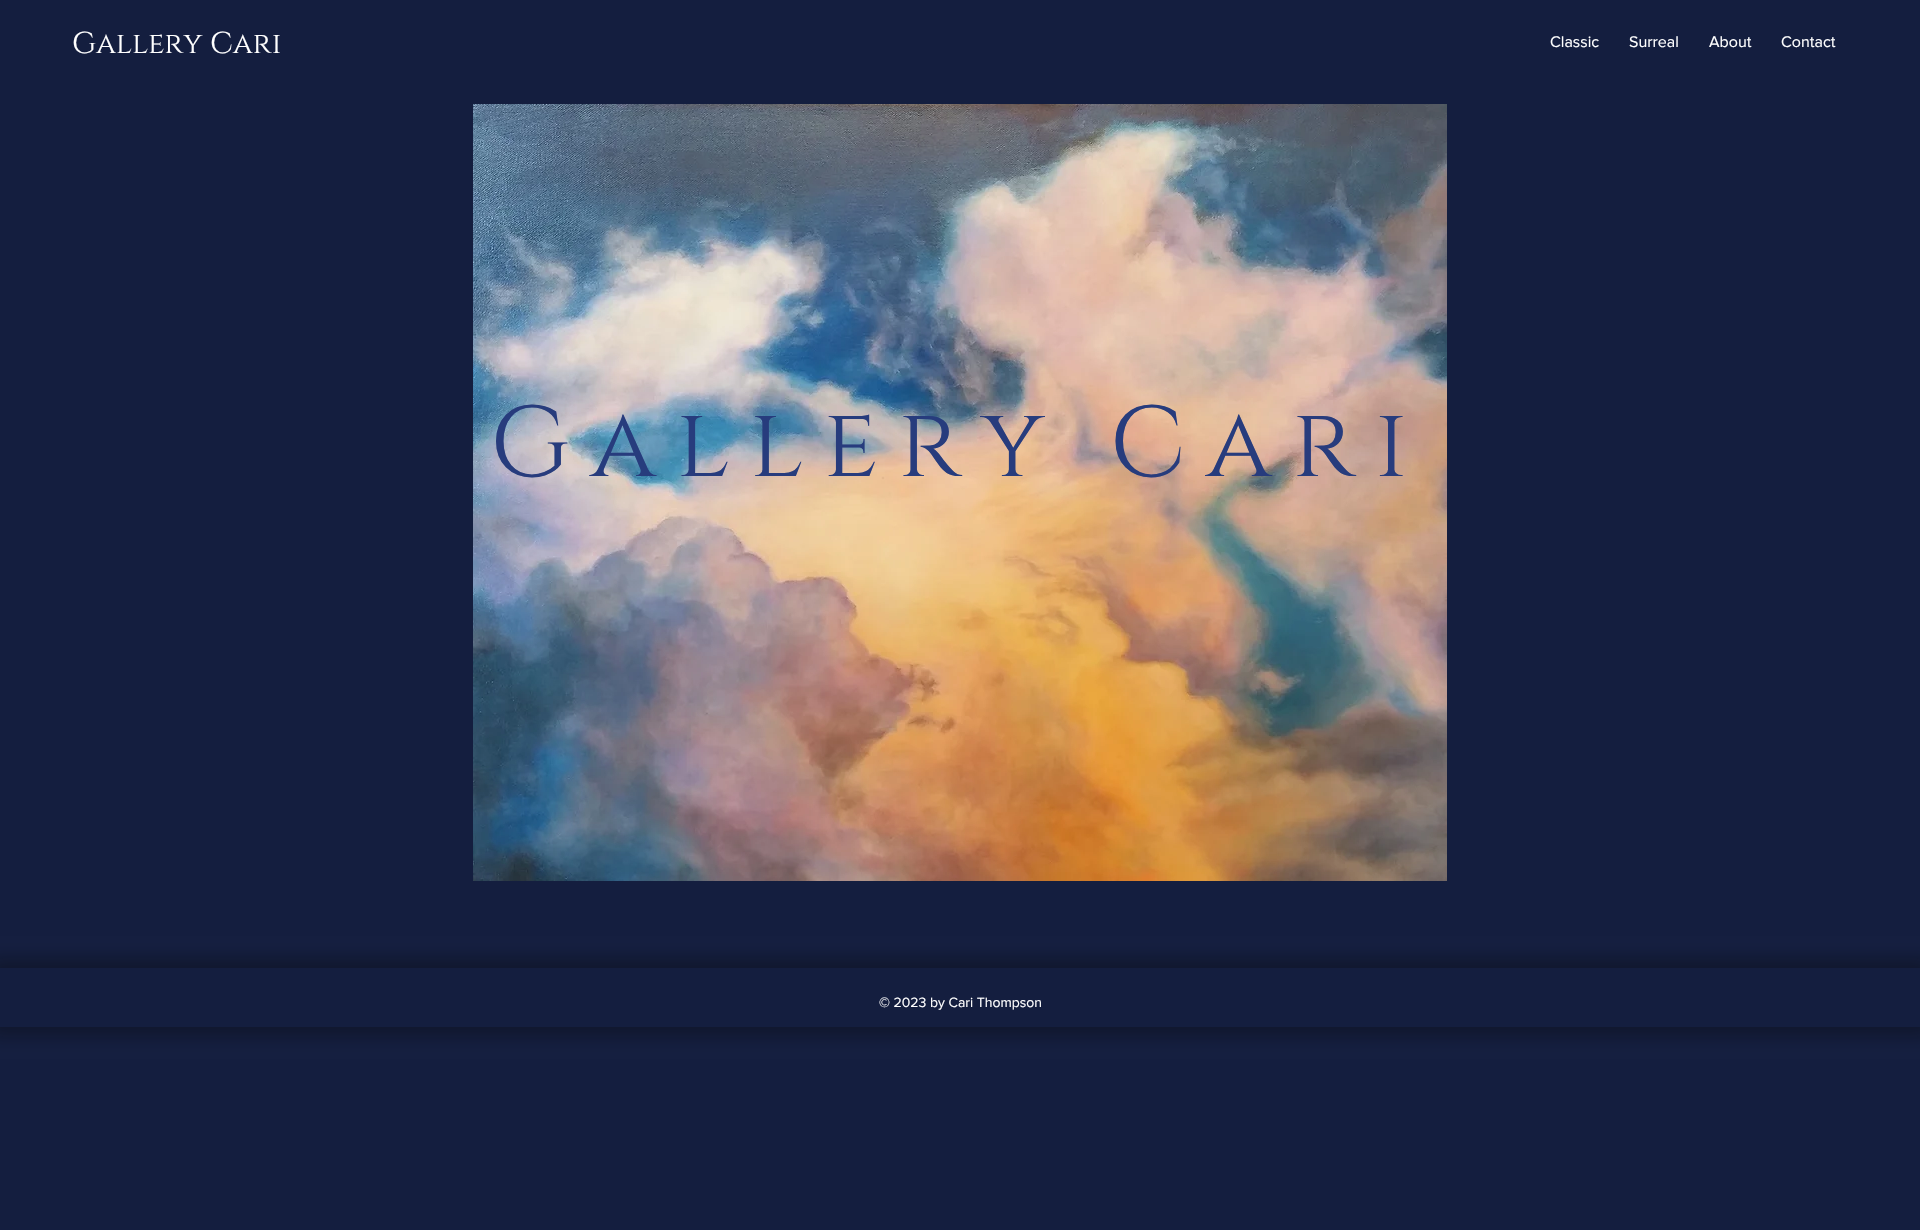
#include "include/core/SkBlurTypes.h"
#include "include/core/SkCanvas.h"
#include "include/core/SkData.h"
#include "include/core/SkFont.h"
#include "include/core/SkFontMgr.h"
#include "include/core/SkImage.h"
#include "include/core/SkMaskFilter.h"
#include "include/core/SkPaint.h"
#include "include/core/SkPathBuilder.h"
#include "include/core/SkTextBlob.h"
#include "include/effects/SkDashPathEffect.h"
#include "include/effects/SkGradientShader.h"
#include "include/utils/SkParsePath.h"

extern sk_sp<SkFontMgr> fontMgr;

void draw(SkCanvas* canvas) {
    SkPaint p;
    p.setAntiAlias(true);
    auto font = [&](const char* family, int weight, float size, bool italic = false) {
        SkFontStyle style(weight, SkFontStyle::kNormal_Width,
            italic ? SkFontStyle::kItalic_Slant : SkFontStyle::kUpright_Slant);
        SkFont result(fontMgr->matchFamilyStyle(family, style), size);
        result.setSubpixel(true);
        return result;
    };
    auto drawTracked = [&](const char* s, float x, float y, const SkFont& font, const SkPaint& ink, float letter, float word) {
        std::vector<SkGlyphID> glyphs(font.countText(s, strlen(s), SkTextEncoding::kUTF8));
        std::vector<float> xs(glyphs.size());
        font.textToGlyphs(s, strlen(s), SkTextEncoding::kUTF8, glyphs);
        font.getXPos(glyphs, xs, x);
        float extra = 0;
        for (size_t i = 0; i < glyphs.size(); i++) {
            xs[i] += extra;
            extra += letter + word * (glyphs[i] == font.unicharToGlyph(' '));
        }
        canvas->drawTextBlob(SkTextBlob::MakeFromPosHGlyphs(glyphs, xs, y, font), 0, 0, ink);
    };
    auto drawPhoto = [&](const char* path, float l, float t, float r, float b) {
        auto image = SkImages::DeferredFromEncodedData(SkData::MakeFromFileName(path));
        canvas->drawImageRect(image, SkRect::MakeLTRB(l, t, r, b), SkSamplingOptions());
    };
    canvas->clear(0xFF141E3F);
    auto font1 = font("Cinzel", 400, 30);
    p.setColor(0xFFFFFFFF);
    canvas->drawString("Gallery Cari", 72, 53, font1, p);
    auto font2 = font("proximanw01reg", 400, 16);
    {
        const struct { const char* s; float x, y; } items[] = {
            {"Classic", 1550, 47},
            {"Surreal", 1629, 47},
            {"About", 1709, 47},
            {"Contact", 1781, 47},
        };
        for (auto [s, x, y] : items) {
            canvas->drawString(s, x, y, font2, p);
        }
    }
    drawPhoto("media/1.png", 473, 104, 1447, 881);
    auto font3 = font("Cinzel", 400, 100);
    p.setColor(0xFF273C7D);
    drawTracked("Gallery Cari", 490, 476, font3, p, 20, 0);
    canvas->save();
    canvas->clipPath(SkPathBuilder(SkPathFillType::kEvenOdd).moveTo(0, 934).lineTo(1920, 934).lineTo(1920, 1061).lineTo(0, 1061).close().moveTo(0, 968).lineTo(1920, 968).lineTo(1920, 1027).lineTo(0, 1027).close().detach(), true);
    p.setColor(0x4D080808);
    p.setMaskFilter(SkMaskFilter::MakeBlur(kNormal_SkBlurStyle, 7.5f));
    canvas->drawRect(SkRect::MakeLTRB(-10, 958, 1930, 1037), p);
    p.setMaskFilter(nullptr);
    canvas->restore();
    auto font4 = font("proximanw01reg", 400, 14);
    p.setColor(0xFFFFFFFF);
    canvas->drawString("© 2023 by Cari Thompson", 879, 1007, font4, p);
}
